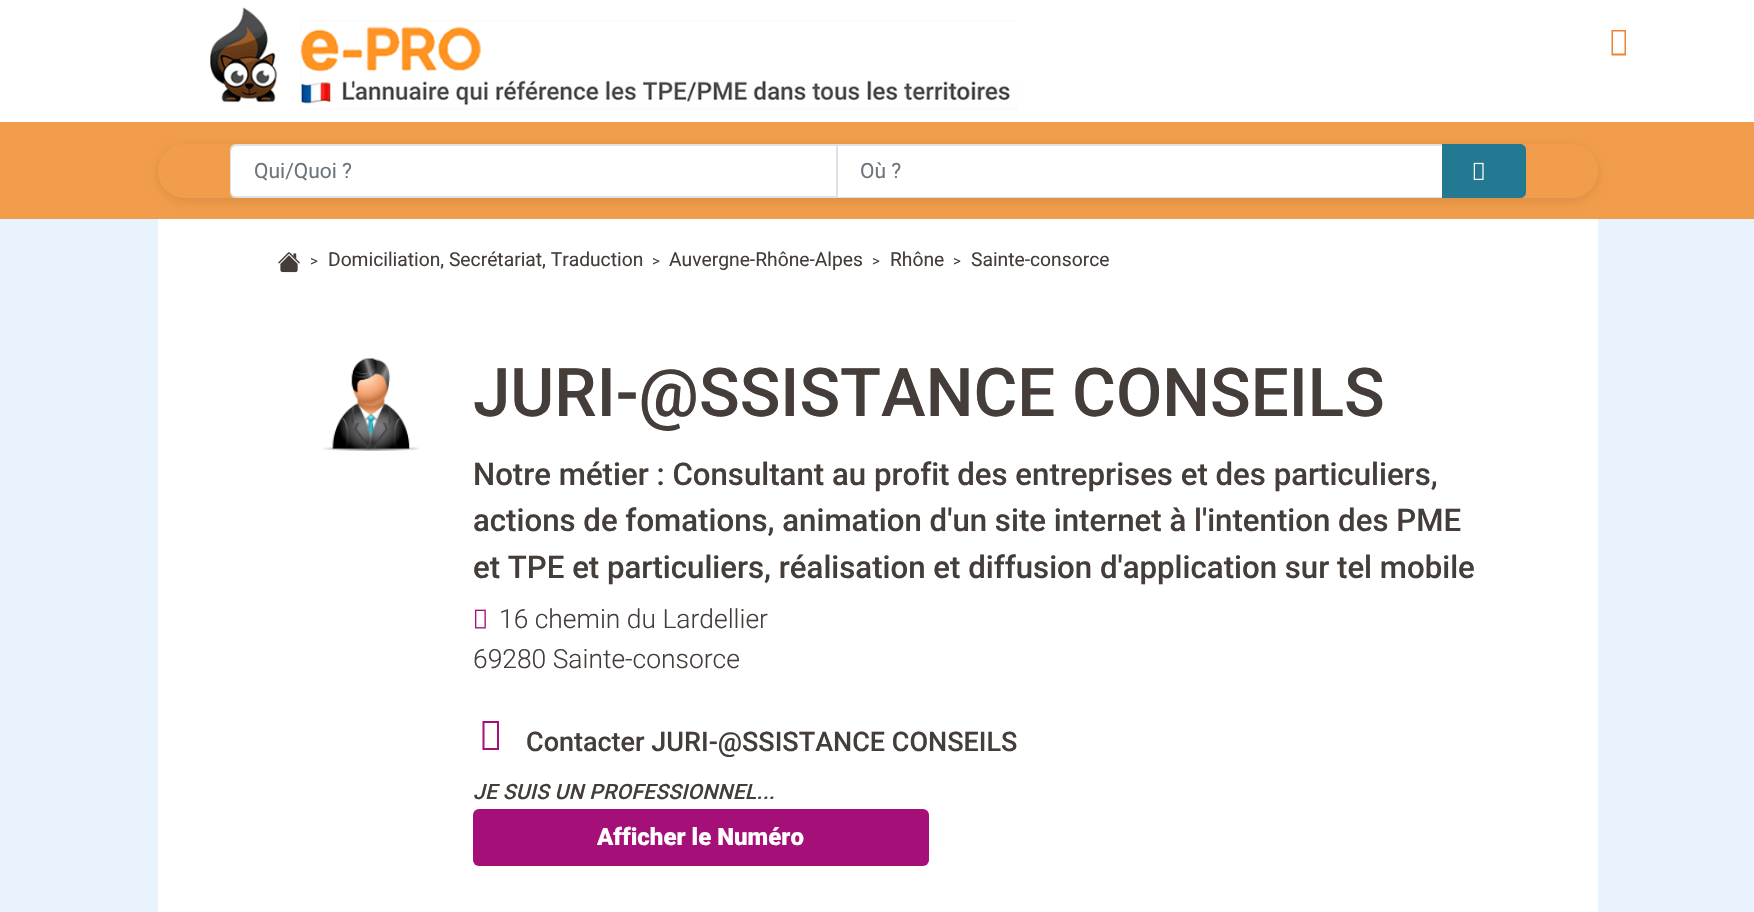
#include "include/core/SkBlurTypes.h"
#include "include/core/SkCanvas.h"
#include "include/core/SkData.h"
#include "include/core/SkFont.h"
#include "include/core/SkFontMgr.h"
#include "include/core/SkImage.h"
#include "include/core/SkMaskFilter.h"
#include "include/core/SkPaint.h"
#include "include/core/SkPathBuilder.h"
#include "include/core/SkTextBlob.h"
#include "include/effects/SkDashPathEffect.h"
#include "include/effects/SkGradientShader.h"
#include "include/utils/SkParsePath.h"

extern sk_sp<SkFontMgr> fontMgr;

void draw(SkCanvas* canvas) {
    SkPaint p;
    p.setAntiAlias(true);
    auto font = [&](const char* family, int weight, float size, bool italic = false) {
        SkFontStyle style(weight, SkFontStyle::kNormal_Width,
            italic ? SkFontStyle::kItalic_Slant : SkFontStyle::kUpright_Slant);
        SkFont result(fontMgr->matchFamilyStyle(family, style), size);
        result.setSubpixel(true);
        return result;
    };
    auto drawTracked = [&](const char* s, float x, float y, const SkFont& font, const SkPaint& ink, float letter, float word) {
        std::vector<SkGlyphID> glyphs(font.countText(s, strlen(s), SkTextEncoding::kUTF8));
        std::vector<float> xs(glyphs.size());
        font.textToGlyphs(s, strlen(s), SkTextEncoding::kUTF8, glyphs);
        font.getXPos(glyphs, xs, x);
        float extra = 0;
        for (size_t i = 0; i < glyphs.size(); i++) {
            xs[i] += extra;
            extra += letter + word * (glyphs[i] == font.unicharToGlyph(' '));
        }
        canvas->drawTextBlob(SkTextBlob::MakeFromPosHGlyphs(glyphs, xs, y, font), 0, 0, ink);
    };
    auto drawPhoto = [&](const char* path, float l, float t, float r, float b) {
        auto image = SkImages::DeferredFromEncodedData(SkData::MakeFromFileName(path));
        canvas->drawImageRect(image, SkRect::MakeLTRB(l, t, r, b), SkSamplingOptions());
    };
    canvas->clear(0xFFFFFFFF);
    drawPhoto("media/1.png", 210, 7, 1018, 110);
    p.setColor(0xFFED8233);
    canvas->drawPath(SkPathBuilder().moveTo(1611.5f, 55.5f).lineTo(1611.5f, 30).lineTo(1626, 30).lineTo(1626, 55.5f).close().moveTo(1613, 53.5f).lineTo(1624.5f, 53.5f).lineTo(1624.5f, 31.5f).lineTo(1613, 31.5f).close().detach(), p);
    {
        const struct { float l, t, r, b; SkColor color; } items[] = {
            {0, 122, 1754, 219, 0xFFF29D4B},
            {0, 219, 1754, 912, 0xFFE9F3FD},
            {158, 219, 1598, 912, 0xFFFFFFFF},
        };
        for (auto [l, t, r, b, color] : items) {
            p.setColor(color);
            canvas->drawRect(SkRect::MakeLTRB(l, t, r, b), p);
        }
    }
    canvas->save();
    canvas->clipPath(SkPathBuilder(SkPathFillType::kEvenOdd).moveTo(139, 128).lineTo(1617, 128).lineTo(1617, 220).lineTo(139, 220).close().moveTo(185, 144).lineTo(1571, 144).cubicTo(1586, 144, 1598, 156, 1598, 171).cubicTo(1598, 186, 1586, 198, 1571, 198).lineTo(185, 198).cubicTo(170, 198, 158, 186, 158, 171).cubicTo(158, 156, 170, 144, 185, 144).close().detach(), true);
    p.setColor(0x1A000000);
    p.setMaskFilter(SkMaskFilter::MakeBlur(kNormal_SkBlurStyle, 6));
    canvas->drawRoundRect(SkRect::MakeLTRB(158, 147, 1598, 201), 27, 27, p);
    p.setMaskFilter(nullptr);
    canvas->restore();
    p.setColor(0xFFFFFFFF);
    canvas->drawPath(SkPathBuilder().moveTo(236, 146).lineTo(837, 146).lineTo(837, 197).lineTo(236, 197).cubicTo(233, 197, 231, 195, 231, 192).lineTo(231, 151).cubicTo(231, 148, 233, 146, 236, 146).close().detach(), p);
    p.setColor(0xFFDEE2E6);
    canvas->drawPath(SkPathBuilder(SkPathFillType::kEvenOdd).moveTo(236, 144).lineTo(837, 144).lineTo(837, 198).lineTo(236, 198).cubicTo(232, 198, 230, 195, 230, 192).lineTo(230, 150).cubicTo(230, 147, 232, 144, 236, 144).close().moveTo(236, 146).lineTo(837, 146).lineTo(837, 196).lineTo(236, 196).cubicTo(233, 196, 231, 194, 231, 192).lineTo(231, 150).cubicTo(231, 148, 233, 146, 236, 146).close().detach(), p);
    auto font1 = font("Roboto", 400, 21);
    p.setColor(0xFF6C757D);
    canvas->drawString("Qui/Quoi ?", 254, 178, font1, p);
    {
        const struct { float l, t, r, b; SkColor color; } items[] = {
            {838, 146, 1442, 197, 0xFFFFFFFF},
            {836, 144, 1443, 146, 0xFFDEE2E6},
            {836, 197, 1443, 198, 0xFFDEE2E6},
            {836, 144, 838, 198, 0xFFDEE2E6},
        };
        for (auto [l, t, r, b, color] : items) {
            p.setColor(color);
            canvas->drawRect(SkRect::MakeLTRB(l, t, r, b), p);
        }
    }
    p.setColor(0xFF6C757D);
    canvas->drawString("Où ?", 860, 178, font1, p);
    p.setColor(0xFF237992);
    canvas->drawPath(SkPathBuilder().moveTo(1442, 144).lineTo(1520, 144).cubicTo(1523.5f, 144, 1526, 146.5f, 1526, 150).lineTo(1526, 192).cubicTo(1526, 195.5f, 1523.5f, 198, 1520, 198).lineTo(1442, 198).close().detach(), p);
    drawPhoto("media/2.png", 1473, 162, 1484, 180);
    drawPhoto("media/3.png", 278, 252, 300, 273);
    auto font2 = font("Roboto", 400, 15);
    p.setColor(0xFF443D3A);
    canvas->drawString(">", 310, 266, font2, p);
    auto font3 = font("Roboto", 400, 19.25f);
    canvas->drawString("Domiciliation, Secrétariat, Traduction", 328, 266, font3, p);
    canvas->drawString(">", 652, 266, font2, p);
    canvas->drawString("Auvergne-Rhône-Alpes", 669, 266, font3, p);
    canvas->drawString(">", 872, 266, font2, p);
    canvas->drawString("Rhône", 890, 266, font3, p);
    canvas->drawString(">", 953, 266, font2, p);
    canvas->drawString("Sainte-consorce", 971, 266, font3, p);
    drawPhoto("media/4.png", 322, 358, 420, 451);
    auto font4 = font("Roboto", 500, 67.25f);
    canvas->drawString("JURI-@SSISTANCE CONSEILS", 473, 416, font4, p);
    auto font5 = font("Roboto", 500, 31.2f);
    {
        const struct { const char* s; float x, y; } items[] = {
            {"Notre métier : Consultant au profit des entreprises et des particuliers,", 473, 485},
            {"actions de fomations, animation d'un site internet à l'intention des PME", 473, 531},
            {"et TPE et particuliers, réalisation et diffusion d'application sur tel mobile", 473, 578},
        };
        for (auto [s, x, y] : items) {
            canvas->drawString(s, x, y, font5, p);
        }
    }
    drawPhoto("media/5.png", 475, 609, 486, 629);
    auto font6 = font("Roboto", 300, 26.4f);
    canvas->drawString("16 chemin du Lardellier", 499, 628, font6, p);
    canvas->drawString("69280 Sainte-consorce", 473, 668, font6, p);
    p.setColor(0xFFA40F78);
    canvas->drawPath(SkPathBuilder().moveTo(482.5f, 750).lineTo(482.5f, 721).lineTo(499, 721).lineTo(499, 750).close().moveTo(484.5f, 748).lineTo(497, 748).lineTo(497, 723).lineTo(484.5f, 723).close().detach(), p);
    auto font7 = font("Roboto", 500, 27);
    p.setColor(0xFF443D3A);
    canvas->drawString("Contacter JURI-@SSISTANCE CONSEILS", 526, 751, font7, p);
    auto font8 = font("Roboto", 500, 21, true);
    drawTracked("JE SUIS UN PROFESSIONNEL...", 473, 799, font8, p, 0.3f, 0);
    p.setColor(0xFFA40F78);
    canvas->drawRoundRect(SkRect::MakeLTRB(473, 809, 929, 866), 6, 6, p);
    auto font9 = font("Roboto", 900, 24);
    p.setColor(0xFFFFFFFF);
    canvas->drawString("Afficher le Numéro", 597, 845, font9, p);
}
